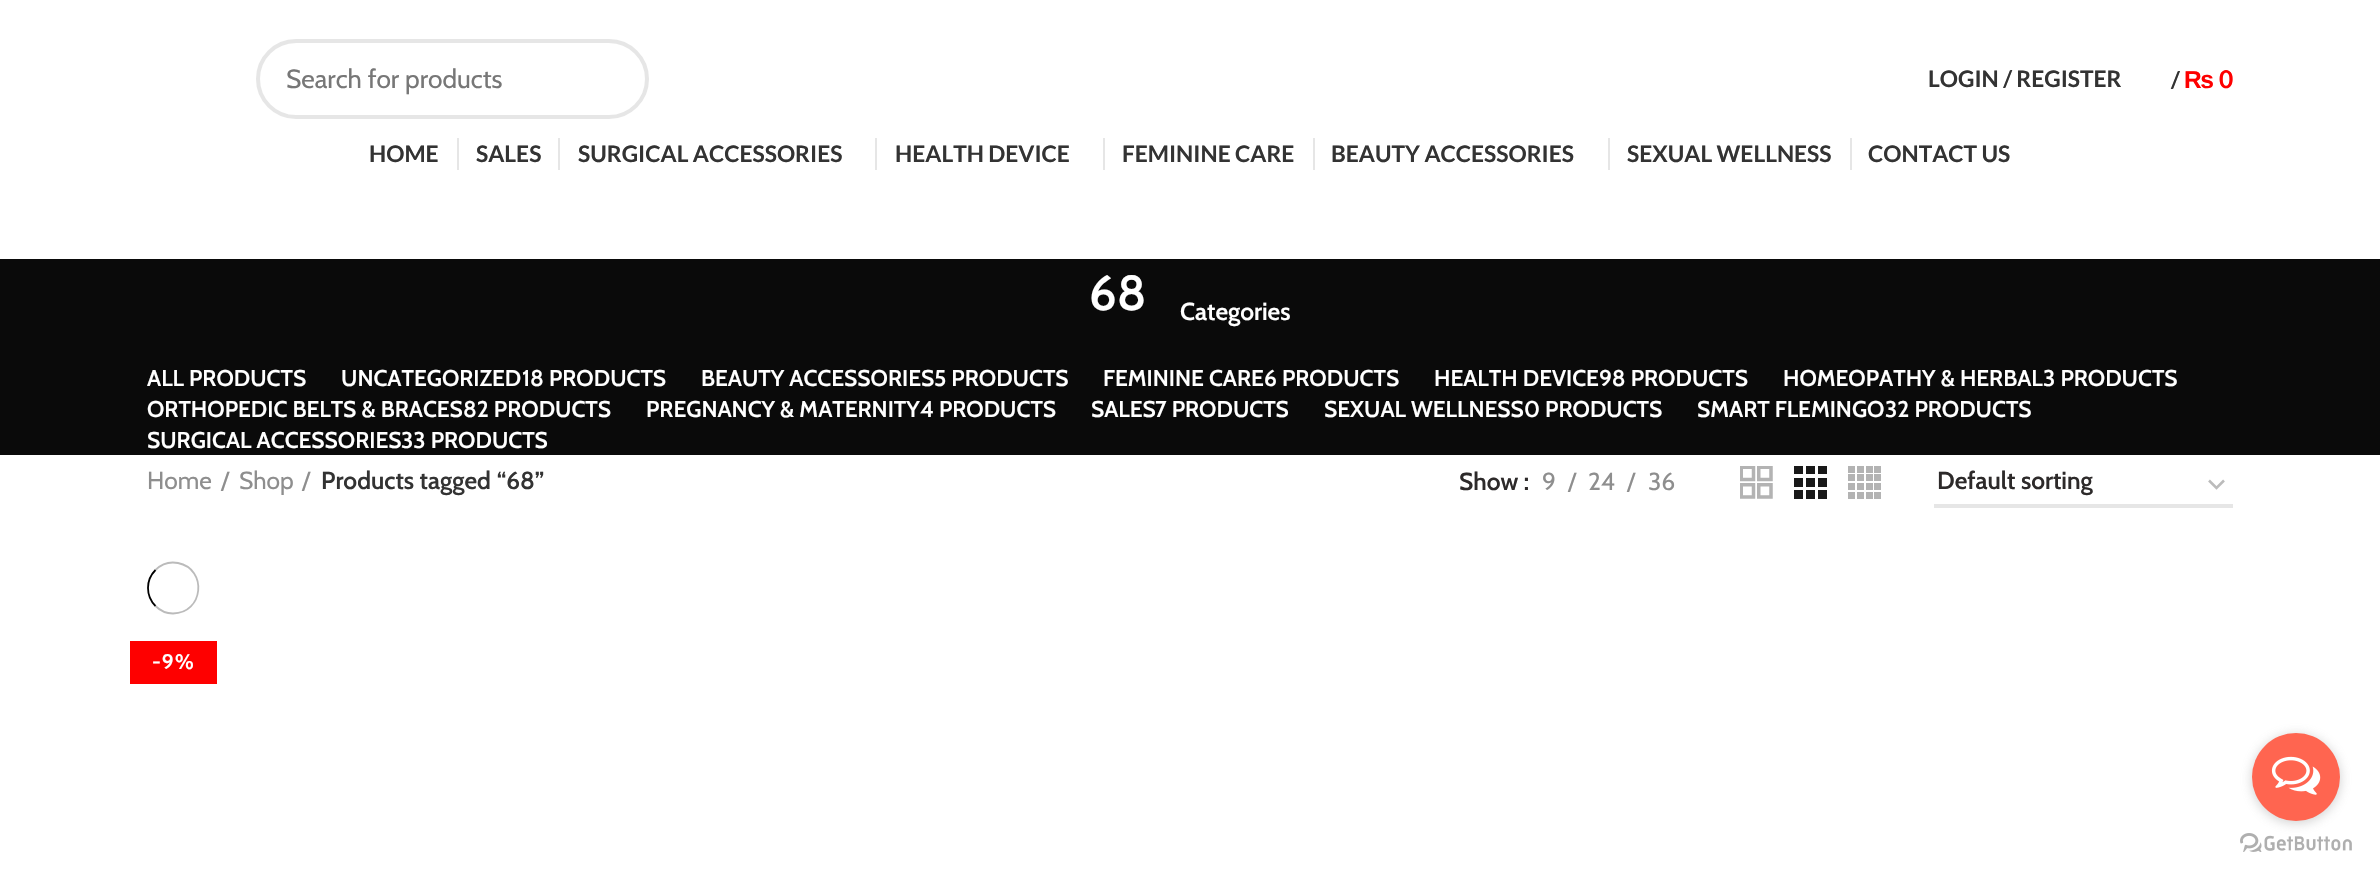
#include "include/core/SkBlurTypes.h"
#include "include/core/SkCanvas.h"
#include "include/core/SkData.h"
#include "include/core/SkFont.h"
#include "include/core/SkFontMgr.h"
#include "include/core/SkImage.h"
#include "include/core/SkMaskFilter.h"
#include "include/core/SkPaint.h"
#include "include/core/SkPathBuilder.h"
#include "include/core/SkTextBlob.h"
#include "include/effects/SkDashPathEffect.h"
#include "include/effects/SkGradientShader.h"
#include "include/utils/SkParsePath.h"

extern sk_sp<SkFontMgr> fontMgr;

void draw(SkCanvas* canvas) {
    SkPaint p;
    p.setAntiAlias(true);
    auto font = [&](const char* family, int weight, float size, bool italic = false) {
        SkFontStyle style(weight, SkFontStyle::kNormal_Width,
            italic ? SkFontStyle::kItalic_Slant : SkFontStyle::kUpright_Slant);
        SkFont result(fontMgr->matchFamilyStyle(family, style), size);
        result.setSubpixel(true);
        return result;
    };
    auto drawTracked = [&](const char* s, float x, float y, const SkFont& font, const SkPaint& ink, float letter, float word) {
        std::vector<SkGlyphID> glyphs(font.countText(s, strlen(s), SkTextEncoding::kUTF8));
        std::vector<float> xs(glyphs.size());
        font.textToGlyphs(s, strlen(s), SkTextEncoding::kUTF8, glyphs);
        font.getXPos(glyphs, xs, x);
        float extra = 0;
        for (size_t i = 0; i < glyphs.size(); i++) {
            xs[i] += extra;
            extra += letter + word * (glyphs[i] == font.unicharToGlyph(' '));
        }
        canvas->drawTextBlob(SkTextBlob::MakeFromPosHGlyphs(glyphs, xs, y, font), 0, 0, ink);
    };
    auto drawPhoto = [&](const char* path, float l, float t, float r, float b) {
        auto image = SkImages::DeferredFromEncodedData(SkData::MakeFromFileName(path));
        canvas->drawImageRect(image, SkRect::MakeLTRB(l, t, r, b), SkSamplingOptions());
    };
    canvas->clear(0xFFFFFFFF);
    p.setStyle(SkPaint::kStroke_Style);
    p.setStrokeWidth(4);
    p.setColor(0xFFE6E6E6);
    canvas->drawRoundRect(SkRect::MakeLTRB(258, 41, 647, 117), 38, 38, p);
    auto font1 = font("Cabin", 400, 26.25f);
    p.setStyle(SkPaint::kFill_Style);
    p.setColor(0xFF777777);
    canvas->drawString("Search for products", 286, 88, font1, p);
    auto font2 = font("Lato", 700, 22.75f);
    p.setColor(0xFF333333);
    canvas->drawString("LOGIN / REGISTER", 1928, 87, font2, p);
    canvas->drawString("/", 2171, 88, font2, p);
    auto font3 = font("Liberation Sans", 700, 24.5f);
    p.setColor(0xFFFE0000);
    canvas->drawString("₨", 2184, 88, font3, p);
    auto font4 = font("Lato", 700, 24.5f);
    canvas->drawString("0", 2219, 88, font4, p);
    p.setColor(0xFF333333);
    canvas->drawString("HOME", 369, 162, font2, p);
    p.setColor(0xFFE6E6E6);
    canvas->drawRect(SkRect::MakeLTRB(457, 138, 459, 170), p);
    p.setColor(0xFF333333);
    canvas->drawString("SALES", 476, 162, font2, p);
    p.setColor(0xFFE6E6E6);
    canvas->drawRect(SkRect::MakeLTRB(558, 138, 560, 170), p);
    p.setColor(0xFF333333);
    canvas->drawString("SURGICAL ACCESSORIES", 578, 162, font2, p);
    p.setColor(0xFFE6E6E6);
    canvas->drawRect(SkRect::MakeLTRB(875, 138, 877, 170), p);
    p.setColor(0xFF333333);
    canvas->drawString("HEALTH DEVICE", 895, 162, font2, p);
    p.setColor(0xFFE6E6E6);
    canvas->drawRect(SkRect::MakeLTRB(1103, 138, 1105, 170), p);
    p.setColor(0xFF333333);
    canvas->drawString("FEMININE CARE", 1122, 162, font2, p);
    p.setColor(0xFFE6E6E6);
    canvas->drawRect(SkRect::MakeLTRB(1313, 138, 1315, 170), p);
    p.setColor(0xFF333333);
    canvas->drawString("BEAUTY ACCESSORIES", 1331, 162, font2, p);
    p.setColor(0xFFE6E6E6);
    canvas->drawRect(SkRect::MakeLTRB(1608, 138, 1610, 170), p);
    p.setColor(0xFF333333);
    canvas->drawString("SEXUAL WELLNESS", 1627, 162, font2, p);
    p.setColor(0xFFE6E6E6);
    canvas->drawRect(SkRect::MakeLTRB(1850, 138, 1852, 170), p);
    p.setColor(0xFF333333);
    canvas->drawString("CONTACT US", 1868, 162, font2, p);
    p.setColor(0xFF0A0A0A);
    canvas->drawRect(SkRect::MakeLTRB(0, 259, 2380, 455), p);
    auto font5 = font("Cabin", 600, 49);
    p.setColor(0xFFFFFFFF);
    canvas->drawString("68", 1089, 310, font5, p);
    auto font6 = font("Cabin", 600, 24.5f);
    canvas->drawString("Categories", 1180, 320, font6, p);
    auto font7 = font("Cabin", 600, 22.75f);
    {
        const struct { const char* s; float x, y; } items[] = {
            {"ALL", 147, 386},
            {"PRODUCTS", 189, 386},
            {"UNCATEGORIZED", 341, 386},
            {"18 PRODUCTS", 522, 386},
            {"BEAUTY ACCESSORIES", 701, 386},
            {"5 PRODUCTS", 934, 386},
            {"FEMININE CARE", 1103, 386},
            {"6 PRODUCTS", 1264, 386},
            {"HEALTH DEVICE", 1434, 386},
            {"98 PRODUCTS", 1599, 386},
            {"HOMEOPATHY & HERBAL", 1783, 386},
            {"3 PRODUCTS", 2043, 386},
            {"ORTHOPEDIC BELTS & BRACES", 147, 417},
            {"82 PRODUCTS", 463, 417},
            {"4 PRODUCTS", 920, 417},
            {"PREGNANCY & MATERNITY", 646, 417},
            {"SALES", 1091, 417},
            {"7 PRODUCTS", 1155, 417},
            {"SEXUAL WELLNESS", 1324, 417},
            {"0 PRODUCTS", 1524, 417},
            {"SMART FLEMINGO", 1697, 417},
            {"32 PRODUCTS", 1885, 417},
            {"SURGICAL ACCESSORIES", 147, 448},
            {"33 PRODUCTS", 401, 448},
        };
        for (auto [s, x, y] : items) {
            canvas->drawString(s, x, y, font7, p);
        }
    }
    auto font8 = font("Cabin", 400, 24.5f);
    p.setColor(0xFF8E8E8E);
    {
        const struct { const char* s; float x, y; } items[] = {
            {"Home", 147, 489},
            {"/", 221, 489},
            {"Shop", 239, 489},
            {"/", 302, 489},
        };
        for (auto [s, x, y] : items) {
            canvas->drawString(s, x, y, font8, p);
        }
    }
    p.setColor(0xFF333333);
    canvas->drawString("Products tagged “68”", 321, 489, font6, p);
    p.setColor(0xFF2D2A2A);
    canvas->drawString("Show :", 1459, 490, font6, p);
    p.setColor(0xFF8E8E8E);
    {
        const struct { const char* s; float x, y; } items[] = {
            {"9", 1542, 490},
            {"/", 1568, 490},
            {"24", 1588, 490},
            {"/", 1627, 490},
            {"36", 1648, 490},
        };
        for (auto [s, x, y] : items) {
            canvas->drawString(s, x, y, font8, p);
        }
    }
    drawPhoto("media/1.png", 1740, 466, 1773, 499);
    drawPhoto("media/2.png", 1794, 466, 1827, 499);
    drawPhoto("media/3.png", 1848, 466, 1881, 499);
    p.setStyle(SkPaint::kStroke_Style);
    p.setStrokeWidth(2.5f);
    p.setColor(0xFFBBBBBB);
    canvas->drawPath(SkPathBuilder().moveTo(2209, 480.5f).lineTo(2216.5f, 488).lineTo(2224, 480.5f).detach(), p);
    p.setStyle(SkPaint::kFill_Style);
    p.setColor(0xFFE6E6E6);
    canvas->drawRect(SkRect::MakeLTRB(1934, 504, 2233, 508), p);
    p.setColor(0xFF2D2A2A);
    canvas->drawString("Default sorting", 1937, 489, font6, p);
    p.setStyle(SkPaint::kStroke_Style);
    p.setStrokeWidth(1.8f);
    p.setColor(0xFFBBBBBB);
    canvas->drawPath(SkPathBuilder().moveTo(155.5f, 570).cubicTo(161.5f, 564, 170, 561.5f, 178, 563).cubicTo(208, 569, 203.5f, 613.5f, 173, 613.5f).cubicTo(166.5f, 613.5f, 160, 610.5f, 155.5f, 606).detach(), p);
    p.setColor(0xFF000000);
    canvas->drawPath(SkPathBuilder().moveTo(155.5f, 606).cubicTo(145.5f, 596, 145.5f, 580, 155.5f, 570).detach(), p);
    p.setStyle(SkPaint::kFill_Style);
    p.setColor(0xFFFE0000);
    canvas->drawRect(SkRect::MakeLTRB(130, 641, 217, 684), p);
    auto font9 = font("Cabin", 600, 21);
    p.setColor(0xFFFFFFFF);
    drawTracked("-9%", 152, 669, font9, p, 1, 0);
    drawPhoto("media/5.png", 2240, 833, 2352, 852);
    p.setColor(0x66888888);
    p.setMaskFilter(SkMaskFilter::MakeBlur(kNormal_SkBlurStyle, 6));
    canvas->drawRoundRect(SkRect::MakeLTRB(2252, 735, 2340, 823), 44, 44, p);
    p.setMaskFilter(nullptr);
    p.setColor(0xFFFF6550);
    canvas->drawCircle(2296, 777, 44, p);
    drawPhoto("media/4.png", 2271, 756, 2321, 795);
}
